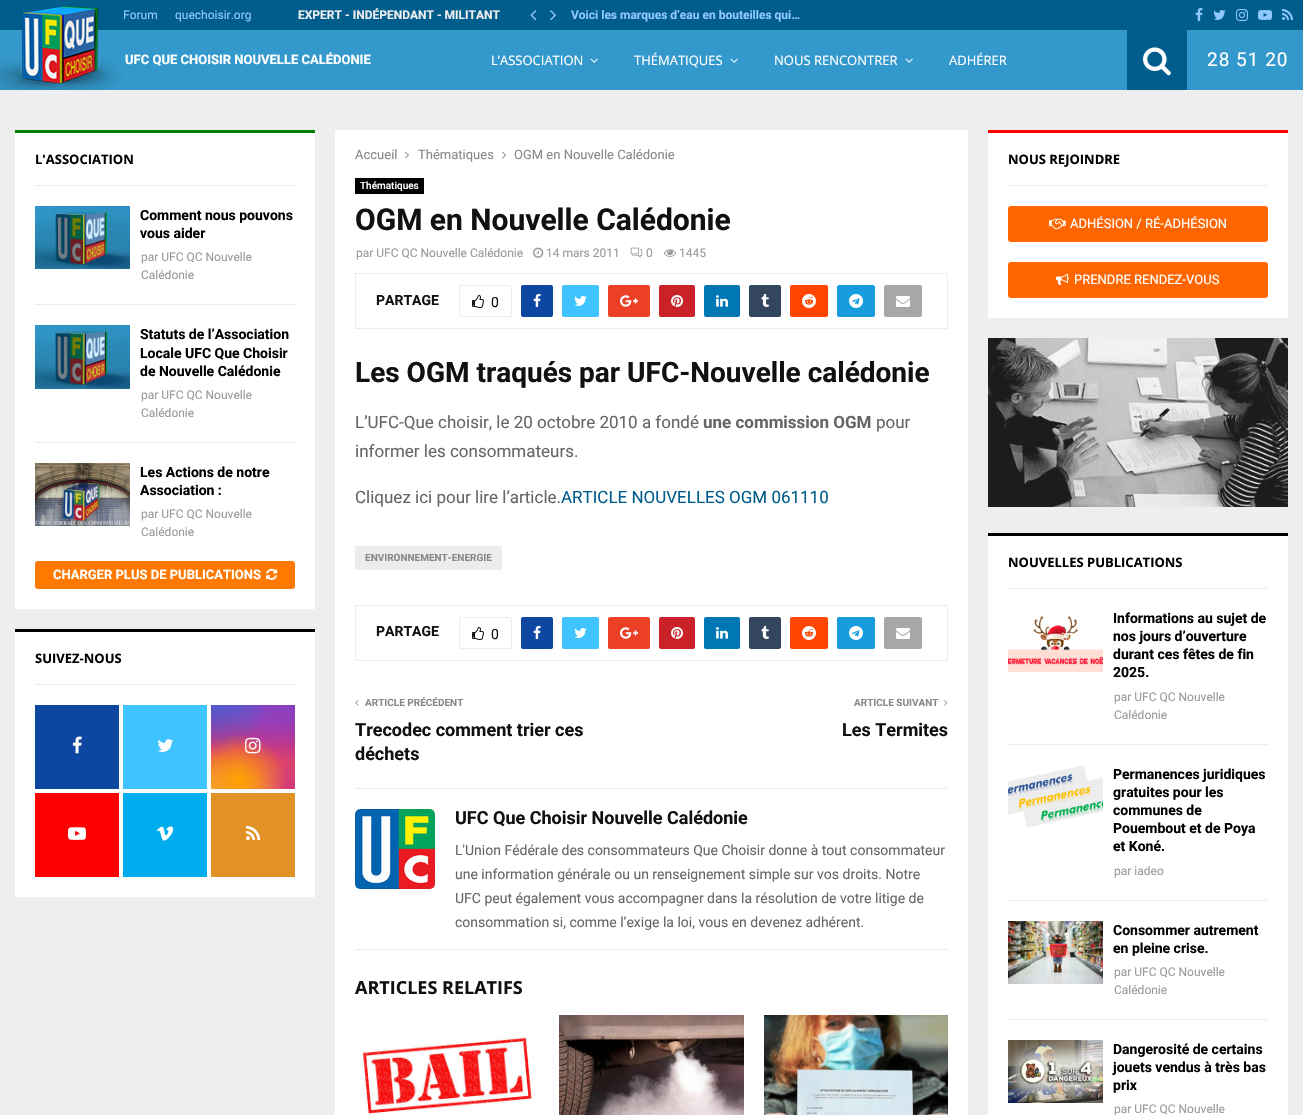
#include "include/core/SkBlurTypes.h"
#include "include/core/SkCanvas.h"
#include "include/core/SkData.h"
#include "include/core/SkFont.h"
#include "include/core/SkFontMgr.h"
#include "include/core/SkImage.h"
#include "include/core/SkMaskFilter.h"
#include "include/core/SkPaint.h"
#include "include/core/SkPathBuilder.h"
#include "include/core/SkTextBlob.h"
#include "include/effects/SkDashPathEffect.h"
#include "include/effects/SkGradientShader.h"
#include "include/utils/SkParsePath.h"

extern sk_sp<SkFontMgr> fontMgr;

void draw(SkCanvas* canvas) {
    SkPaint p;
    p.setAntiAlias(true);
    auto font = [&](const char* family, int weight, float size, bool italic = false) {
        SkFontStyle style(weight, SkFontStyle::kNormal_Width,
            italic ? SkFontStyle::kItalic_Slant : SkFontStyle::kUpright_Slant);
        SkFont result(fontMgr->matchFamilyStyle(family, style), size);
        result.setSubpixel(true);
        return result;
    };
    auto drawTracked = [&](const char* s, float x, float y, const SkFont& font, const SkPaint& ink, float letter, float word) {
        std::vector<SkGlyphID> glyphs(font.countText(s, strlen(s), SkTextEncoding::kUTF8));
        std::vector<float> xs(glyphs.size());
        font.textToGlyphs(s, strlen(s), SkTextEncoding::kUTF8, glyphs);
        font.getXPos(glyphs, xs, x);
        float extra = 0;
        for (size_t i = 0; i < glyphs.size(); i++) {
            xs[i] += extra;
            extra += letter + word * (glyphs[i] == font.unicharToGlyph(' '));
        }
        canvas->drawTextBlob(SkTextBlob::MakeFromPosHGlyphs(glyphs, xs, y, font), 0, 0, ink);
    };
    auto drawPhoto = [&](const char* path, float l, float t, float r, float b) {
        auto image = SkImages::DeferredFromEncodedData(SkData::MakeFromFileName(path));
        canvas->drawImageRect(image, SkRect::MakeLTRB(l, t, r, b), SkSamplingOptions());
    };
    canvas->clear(0xFFEEEEEE);
    p.setColor(0xFF3399CC);
    canvas->drawRect(SkRect::MakeLTRB(0, 30, 1303, 90), p);
    p.setColor(0xFF005D8C);
    canvas->drawRect(SkRect::MakeLTRB(0, 0, 1303, 30), p);
    auto font1 = font("Roboto", 400, 12);
    p.setColor(0xFF91C8FF);
    canvas->drawString("Forum", 123, 19, font1, p);
    canvas->drawString("quechoisir.org", 175, 19, font1, p);
    auto font2 = font("Roboto", 700, 12);
    p.setColor(0xFFEEEEEE);
    canvas->drawString("EXPERT - INDÉPENDANT - MILITANT", 298, 19, font2, p);
    drawPhoto("media/1.png", 530, 10, 537, 21);
    drawPhoto("media/2.png", 550, 10, 556, 21);
    p.setColor(0xFF91C8FF);
    canvas->drawString("Voici les marques d’eau en bouteilles qui…", 571, 19, font2, p);
    drawPhoto("media/3.png", 1195, 8, 1203, 21);
    drawPhoto("media/4.png", 1213, 10, 1226, 20);
    drawPhoto("media/5.png", 1236, 9, 1248, 21);
    drawPhoto("media/6.png", 1258, 10, 1272, 20);
    drawPhoto("media/7.png", 1282, 9, 1293, 20);
    drawPhoto("media/8.png", 0, 6, 123, 90);
    auto font3 = font("Roboto", 700, 13);
    p.setColor(0xFFFFFFFF);
    canvas->drawString("UFC QUE CHOISIR NOUVELLE CALÉDONIE", 125, 64, font3, p);
    auto font4 = font("Open Sans", 400, 13);
    canvas->drawString("L’ASSOCIATION", 491, 65, font4, p);
    drawPhoto("media/9.png", 590, 58, 598, 63);
    canvas->drawString("THÉMATIQUES", 634, 65, font4, p);
    drawPhoto("media/9.png", 730, 58, 738, 63);
    canvas->drawString("NOUS RENCONTRER", 774, 65, font4, p);
    drawPhoto("media/9.png", 905, 58, 913, 63);
    canvas->drawString("ADHÉRER", 949, 65, font4, p);
    p.setColor(0xFF005D8C);
    canvas->drawRect(SkRect::MakeLTRB(1127, 30, 1187, 90), p);
    drawPhoto("media/10.png", 1143, 47, 1171, 76);
    auto font5 = font("Roboto", 400, 19);
    p.setColor(0xFFFFFFFF);
    drawTracked("28 51 20", 1207, 66, font5, p, 1, 0);
    {
        const struct { float l, t, r, b; SkColor color; } items[] = {
            {15, 133, 315, 609, 0xFFFFFFFF},
            {35, 185, 295, 186, 0xFFECECEC},
            {15, 130, 315, 133, 0xFF008000},
        };
        for (auto [l, t, r, b, color] : items) {
            p.setColor(color);
            canvas->drawRect(SkRect::MakeLTRB(l, t, r, b), p);
        }
    }
    auto font6 = font("Open Sans", 700, 13);
    p.setColor(0xFF000000);
    canvas->drawString("L'ASSOCIATION", 35, 164, font6, p);
    p.setColor(0xFFECECEC);
    canvas->drawRect(SkRect::MakeLTRB(35, 304, 295, 305), p);
    drawPhoto("media/11.png", 35, 206, 130, 269);
    auto font7 = font("Roboto", 700, 14);
    p.setColor(0xFF000000);
    canvas->drawString("Comment nous pouvons", 140, 220, font7, p);
    canvas->drawString("vous aider", 140, 238, font7, p);
    p.setColor(0xFF999999);
    canvas->drawString("par UFC QC Nouvelle", 141, 261, font1, p);
    canvas->drawString("Calédonie", 141, 279, font1, p);
    p.setColor(0xFFECECEC);
    canvas->drawRect(SkRect::MakeLTRB(35, 442, 295, 443), p);
    drawPhoto("media/12.png", 35, 325, 130, 389);
    p.setColor(0xFF000000);
    {
        const struct { const char* s; float x, y; } items[] = {
            {"Statuts de l’Association", 140, 339},
            {"Locale UFC Que Choisir", 140, 358},
            {"de Nouvelle Calédonie", 140, 376},
        };
        for (auto [s, x, y] : items) {
            canvas->drawString(s, x, y, font7, p);
        }
    }
    p.setColor(0xFF999999);
    canvas->drawString("par UFC QC Nouvelle", 141, 399, font1, p);
    canvas->drawString("Calédonie", 141, 417, font1, p);
    drawPhoto("media/13.png", 35, 463, 130, 526);
    p.setColor(0xFF000000);
    canvas->drawString("Les Actions de notre", 140, 477, font7, p);
    canvas->drawString("Association :", 140, 495, font7, p);
    p.setColor(0xFF999999);
    canvas->drawString("par UFC QC Nouvelle", 141, 518, font1, p);
    canvas->drawString("Calédonie", 141, 536, font1, p);
    p.setColor(0xFFFF7900);
    canvas->drawRoundRect(SkRect::MakeLTRB(35, 561, 295, 589), 3, 3, p);
    p.setColor(0xFFFFFFFF);
    canvas->drawString("CHARGER PLUS DE PUBLICATIONS", 53, 579, font3, p);
    drawPhoto("media/14.png", 266, 568, 278, 580);
    {
        const struct { float l, t, r, b; SkColor color; } items[] = {
            {15, 632, 315, 897, 0xFFFFFFFF},
            {35, 684, 295, 685, 0xFFECECEC},
            {15, 629, 315, 632, 0xFF000000},
        };
        for (auto [l, t, r, b, color] : items) {
            p.setColor(color);
            canvas->drawRect(SkRect::MakeLTRB(l, t, r, b), p);
        }
    }
    canvas->drawString("SUIVEZ-NOUS", 35, 663, font6, p);
    p.setColor(0xFF0D47A1);
    canvas->drawRect(SkRect::MakeLTRB(35, 705, 119, 789), p);
    drawPhoto("media/15.png", 72, 736, 82, 754);
    p.setColor(0xFF40C4FF);
    canvas->drawRect(SkRect::MakeLTRB(123, 705, 207, 789), p);
    drawPhoto("media/16.png", 157, 739, 174, 752);
    {
        const SkColor colors[] = {0xFF6559CA, 0xFFBC318F, 0xFFE33F5F, 0xFFF77638, 0xFFFEC66D};
        const float stops[] = {0, 0.3f, 0.5f, 0.7f, 1};
        const SkPoint ends[] = {{253, 705}, {253, 789}};
        p.setShader(SkGradientShader::MakeLinear(ends, colors, stops, 5, SkTileMode::kClamp));
        p.setAlpha(255);
    }
    canvas->drawRect(SkRect::MakeLTRB(211, 705, 295, 789), p);
    {
        const SkColor colors[] = {0xFFD43178, 0x00D43178};
        const float stops[] = {0, 1};
        p.setShader(SkGradientShader::MakeRadial({295, 789}, 119, colors, stops, 2, SkTileMode::kClamp));
        p.setAlpha(255);
    }
    canvas->drawRect(SkRect::MakeLTRB(211, 705, 295, 789), p);
    {
        const SkColor colors[] = {0xFF8F44C7, 0x008F44C7};
        const float stops[] = {0, 0.5f};
        SkMatrix m = SkMatrix::Translate(261, 688).preScale(71, 143);
        p.setShader(SkGradientShader::MakeRadial({0, 0}, 1, colors, stops, 2, SkTileMode::kClamp, 0, &m));
        p.setAlpha(255);
    }
    canvas->drawRect(SkRect::MakeLTRB(230, 705, 292, 758), p);
    {
        const SkColor colors[] = {0xFF893DC2, 0x00893DC2};
        const float stops[] = {0, 0.5f};
        p.setShader(SkGradientShader::MakeRadial({295, 705}, 119, colors, stops, 2, SkTileMode::kClamp));
        p.setAlpha(255);
    }
    canvas->drawRect(SkRect::MakeLTRB(242, 705, 295, 763), p);
    {
        const SkColor colors[] = {0xFF5258CF, 0x005258CF};
        const float stops[] = {0, 0.5f};
        SkMatrix m = SkMatrix::Translate(228, 663).preScale(95, 178);
        p.setShader(SkGradientShader::MakeRadial({0, 0}, 1, colors, stops, 2, SkTileMode::kClamp, 0, &m));
        p.setAlpha(255);
    }
    canvas->drawRect(SkRect::MakeLTRB(211, 705, 267, 750), p);
    {
        const SkColor colors[] = {0xFF5258CF, 0x005258CF};
        const float stops[] = {0, 0.5f};
        SkMatrix m = SkMatrix::Translate(211, 684).preScale(119, 148);
        p.setShader(SkGradientShader::MakeRadial({0, 0}, 1, colors, stops, 2, SkTileMode::kClamp, 0, &m));
        p.setAlpha(255);
    }
    canvas->drawRect(SkRect::MakeLTRB(211, 705, 265, 756), p);
    {
        const SkColor colors[] = {0xFFEFA11C, 0x00EFA11C};
        const float stops[] = {0, 0.5f};
        p.setShader(SkGradientShader::MakeRadial({211, 823}, 145, colors, stops, 2, SkTileMode::kClamp));
        p.setAlpha(255);
    }
    canvas->drawRect(SkRect::MakeLTRB(211, 753, 272, 789), p);
    {
        const SkColor colors[] = {0xFFFFA100, 0x00FFA100};
        const float stops[] = {0, 0.5f};
        p.setShader(SkGradientShader::MakeRadial({240, 781}, 93, colors, stops, 2, SkTileMode::kClamp));
        p.setAlpha(255);
    }
    canvas->drawRect(SkRect::MakeLTRB(211, 736, 285, 789), p);
    drawPhoto("media/17.png", 245, 737, 261, 754);
    p.setShader(nullptr);
    p.setColor(0xFFFF0000);
    canvas->drawRect(SkRect::MakeLTRB(35, 793, 119, 877), p);
    drawPhoto("media/18.png", 68, 827, 86, 840);
    p.setColor(0xFF00ADEF);
    canvas->drawRect(SkRect::MakeLTRB(123, 793, 207, 877), p);
    drawPhoto("media/19.png", 156, 826, 174, 841);
    p.setColor(0xFFE19126);
    canvas->drawRect(SkRect::MakeLTRB(211, 793, 295, 877), p);
    drawPhoto("media/20.png", 246, 825, 261, 840);
    p.setColor(0xFFFFFFFF);
    canvas->drawRect(SkRect::MakeLTRB(335, 130, 968, 1115), p);
    auto font8 = font("Roboto", 400, 13);
    p.setColor(0xFF888888);
    canvas->drawString("Accueil", 355, 159, font8, p);
    drawPhoto("media/21.png", 405, 151, 409, 159);
    canvas->drawString("Thématiques", 418, 159, font8, p);
    drawPhoto("media/21.png", 502, 151, 506, 159);
    canvas->drawString("OGM en Nouvelle Calédonie", 514, 159, font8, p);
    p.setColor(0xFF000000);
    canvas->drawRect(SkRect::MakeLTRB(355, 178, 424, 194), p);
    auto font9 = font("Roboto", 500, 10);
    p.setColor(0xFFFFFFFF);
    canvas->drawString("Thématiques", 360, 189, font9, p);
    auto font10 = font("Roboto", 700, 30);
    p.setColor(0xFF111111);
    canvas->drawString("OGM en Nouvelle Calédonie", 355, 230, font10, p);
    p.setColor(0xFF999999);
    canvas->drawString("par UFC QC Nouvelle Calédonie", 356, 257, font1, p);
    drawPhoto("media/22.png", 533, 247, 544, 258);
    canvas->drawString("14 mars 2011", 546, 257, font1, p);
    drawPhoto("media/23.png", 630, 247, 643, 258);
    canvas->drawString("0", 646, 257, font1, p);
    drawPhoto("media/24.png", 664, 249, 676, 257);
    canvas->drawString("1445", 679, 257, font1, p);
    p.setStyle(SkPaint::kStroke_Style);
    p.setStrokeWidth(1);
    p.setColor(0xFFECECEC);
    canvas->drawRect(SkRect::MakeLTRB(355.5f, 273.5f, 947.5f, 328.5f), p);
    p.setStyle(SkPaint::kFill_Style);
    p.setColor(0xFF111111);
    canvas->drawString("PARTAGE", 376, 305, font7, p);
    p.setStyle(SkPaint::kStroke_Style);
    p.setColor(0xFFECECEC);
    canvas->drawRoundRect(SkRect::MakeLTRB(459.5f, 285.5f, 511.5f, 316.5f), 1.5f, 1.5f, p);
    drawPhoto("media/25.png", 472, 295, 484, 308);
    auto font11 = font("Roboto", 400, 14);
    p.setStyle(SkPaint::kFill_Style);
    p.setColor(0xFF111111);
    canvas->drawString("0", 491, 307, font11, p);
    p.setColor(0xFF0D47A1);
    canvas->drawRoundRect(SkRect::MakeLTRB(521, 285, 553, 317), 2, 2, p);
    drawPhoto("media/26.png", 533, 294, 541, 307);
    p.setColor(0xFF40C4FF);
    canvas->drawRoundRect(SkRect::MakeLTRB(562, 285, 599, 317), 2, 2, p);
    drawPhoto("media/27.png", 574, 296, 587, 306);
    p.setColor(0xFFEB4026);
    canvas->drawRoundRect(SkRect::MakeLTRB(608, 285, 650, 317), 2, 2, p);
    drawPhoto("media/28.png", 620, 295, 638, 307);
    p.setColor(0xFFC92228);
    canvas->drawRoundRect(SkRect::MakeLTRB(659, 285, 695, 317), 2, 2, p);
    drawPhoto("media/29.png", 671, 295, 683, 307);
    p.setColor(0xFF0077B5);
    canvas->drawRoundRect(SkRect::MakeLTRB(704, 285, 740, 317), 2, 2, p);
    drawPhoto("media/30.png", 716, 295, 728, 307);
    p.setColor(0xFF34465D);
    canvas->drawRoundRect(SkRect::MakeLTRB(749, 285, 781, 317), 2, 2, p);
    drawPhoto("media/31.png", 761, 294, 769, 307);
    p.setColor(0xFFFF4500);
    canvas->drawRoundRect(SkRect::MakeLTRB(790, 285, 828, 317), 2, 2, p);
    drawPhoto("media/32.png", 802, 294, 816, 308);
    p.setColor(0xFF179CDE);
    canvas->drawRoundRect(SkRect::MakeLTRB(837, 285, 875, 317), 2, 2, p);
    drawPhoto("media/33.png", 849, 294, 863, 308);
    p.setColor(0xFFA7A7A7);
    canvas->drawRoundRect(SkRect::MakeLTRB(884, 285, 922, 317), 2, 2, p);
    drawPhoto("media/34.png", 896, 296, 910, 307);
    auto font12 = font("Roboto", 700, 28);
    p.setColor(0xFF111111);
    canvas->drawString("Les OGM traqués par UFC-Nouvelle calédonie", 355, 382, font12, p);
    auto font13 = font("Roboto", 400, 17);
    p.setColor(0xFF666666);
    canvas->drawString("L’UFC-Que choisir, le 20 octobre 2010 a fondé", 355, 428, font13, p);
    auto font14 = font("Roboto", 700, 17);
    canvas->drawString("une commission OGM", 703, 428, font14, p);
    {
        const struct { const char* s; float x, y; } items[] = {
            {"pour", 876, 428},
            {"informer les consommateurs.", 355, 457},
            {"Cliquez ici pour lire l’article.", 355, 503},
        };
        for (auto [s, x, y] : items) {
            canvas->drawString(s, x, y, font13, p);
        }
    }
    p.setColor(0xFF005D8C);
    canvas->drawString("ARTICLE NOUVELLES OGM 061110", 561, 503, font13, p);
    p.setColor(0xFFECECEC);
    canvas->drawRect(SkRect::MakeLTRB(355, 546, 502, 570), p);
    auto font15 = font("Roboto", 700, 10);
    p.setColor(0xFF888888);
    canvas->drawString("ENVIRONNEMENT-ENERGIE", 365, 561, font15, p);
    p.setStyle(SkPaint::kStroke_Style);
    p.setColor(0xFFECECEC);
    canvas->drawRect(SkRect::MakeLTRB(355.5f, 605.5f, 947.5f, 660.5f), p);
    p.setStyle(SkPaint::kFill_Style);
    p.setColor(0xFF111111);
    canvas->drawString("PARTAGE", 376, 636, font7, p);
    p.setStyle(SkPaint::kStroke_Style);
    p.setColor(0xFFECECEC);
    canvas->drawRoundRect(SkRect::MakeLTRB(459.5f, 617.5f, 511.5f, 648.5f), 1.5f, 1.5f, p);
    drawPhoto("media/25.png", 472, 627, 484, 640);
    p.setStyle(SkPaint::kFill_Style);
    p.setColor(0xFF111111);
    canvas->drawString("0", 491, 639, font11, p);
    p.setColor(0xFF0D47A1);
    canvas->drawRoundRect(SkRect::MakeLTRB(521, 617, 553, 649), 2, 2, p);
    drawPhoto("media/26.png", 533, 626, 541, 639);
    p.setColor(0xFF40C4FF);
    canvas->drawRoundRect(SkRect::MakeLTRB(562, 617, 599, 649), 2, 2, p);
    drawPhoto("media/27.png", 574, 628, 587, 638);
    p.setColor(0xFFEB4026);
    canvas->drawRoundRect(SkRect::MakeLTRB(608, 617, 650, 649), 2, 2, p);
    drawPhoto("media/28.png", 620, 627, 638, 639);
    p.setColor(0xFFC92228);
    canvas->drawRoundRect(SkRect::MakeLTRB(659, 617, 695, 649), 2, 2, p);
    drawPhoto("media/29.png", 671, 627, 683, 639);
    p.setColor(0xFF0077B5);
    canvas->drawRoundRect(SkRect::MakeLTRB(704, 617, 740, 649), 2, 2, p);
    drawPhoto("media/30.png", 716, 627, 728, 639);
    p.setColor(0xFF34465D);
    canvas->drawRoundRect(SkRect::MakeLTRB(749, 617, 781, 649), 2, 2, p);
    drawPhoto("media/31.png", 761, 626, 769, 639);
    p.setColor(0xFFFF4500);
    canvas->drawRoundRect(SkRect::MakeLTRB(790, 617, 828, 649), 2, 2, p);
    drawPhoto("media/32.png", 802, 626, 816, 640);
    p.setColor(0xFF179CDE);
    canvas->drawRoundRect(SkRect::MakeLTRB(837, 617, 875, 649), 2, 2, p);
    drawPhoto("media/33.png", 849, 626, 863, 640);
    p.setColor(0xFFA7A7A7);
    canvas->drawRoundRect(SkRect::MakeLTRB(884, 617, 922, 649), 2, 2, p);
    drawPhoto("media/34.png", 896, 628, 910, 639);
    p.setColor(0xFFECECEC);
    canvas->drawRect(SkRect::MakeLTRB(355, 788, 948, 789), p);
    drawPhoto("media/35.png", 355, 700, 359, 706);
    p.setColor(0xFF888888);
    canvas->drawString("ARTICLE PRÉCÉDENT", 365, 706, font15, p);
    auto font16 = font("Roboto", 700, 18);
    p.setColor(0xFF111111);
    canvas->drawString("Trecodec comment trier ces", 355, 736, font16, p);
    canvas->drawString("déchets", 355, 760, font16, p);
    p.setColor(0xFF888888);
    canvas->drawString("ARTICLE SUIVANT", 854, 706, font15, p);
    drawPhoto("media/36.png", 944, 700, 948, 706);
    p.setColor(0xFF111111);
    canvas->drawString("Les Termites", 842, 736, font16, p);
    p.setColor(0xFFECECEC);
    canvas->drawRect(SkRect::MakeLTRB(355, 949, 948, 950), p);
    drawPhoto("media/37.png", 355, 809, 435, 889);
    p.setColor(0xFF111111);
    canvas->drawString("UFC Que Choisir Nouvelle Calédonie", 455, 824, font16, p);
    p.setColor(0xFF666666);
    {
        const struct { const char* s; float x, y; } items[] = {
            {"L'Union Fédérale des consommateurs Que Choisir donne à tout consommateur", 455, 855},
            {"une information générale ou un renseignement simple sur vos droits. Notre", 455, 879},
            {"UFC peut également vous accompagner dans la résolution de votre litige de", 455, 903},
            {"consommation si, comme l’exige la loi, vous en devenez adhérent.", 455, 927},
        };
        for (auto [s, x, y] : items) {
            canvas->drawString(s, x, y, font11, p);
        }
    }
    auto font17 = font("Open Sans", 700, 18);
    p.setColor(0xFF111111);
    canvas->drawString("ARTICLES RELATIFS", 355, 994, font17, p);
    drawPhoto("media/38.png", 355, 1015, 539, 1115);
    drawPhoto("media/39.png", 559, 1015, 744, 1115);
    drawPhoto("media/40.png", 764, 1015, 948, 1115);
    {
        const struct { float l, t, r, b; SkColor color; } items[] = {
            {988, 133, 1288, 318, 0xFFFFFFFF},
            {1008, 185, 1268, 186, 0xFFECECEC},
            {988, 130, 1288, 133, 0xFFFF0000},
        };
        for (auto [l, t, r, b, color] : items) {
            p.setColor(color);
            canvas->drawRect(SkRect::MakeLTRB(l, t, r, b), p);
        }
    }
    p.setColor(0xFF000000);
    canvas->drawString("NOUS REJOINDRE", 1008, 164, font6, p);
    p.setColor(0xFFFF6600);
    canvas->drawRoundRect(SkRect::MakeLTRB(1008, 206, 1268, 242), 3, 3, p);
    drawPhoto("media/41.png", 1049, 218, 1066, 230);
    p.setColor(0xFFFFFFFF);
    canvas->drawString("ADHÉSION / RÉ-ADHÉSION", 1070, 228, font8, p);
    p.setColor(0xFFFF6600);
    canvas->drawRoundRect(SkRect::MakeLTRB(1008, 262, 1268, 298), 3, 3, p);
    drawPhoto("media/42.png", 1056, 273, 1069, 285);
    p.setColor(0xFFFFFFFF);
    canvas->drawString("PRENDRE RENDEZ-VOUS", 1074, 284, font8, p);
    drawPhoto("media/43.png", 988, 338, 1288, 507);
    {
        const struct { float l, t, r, b; SkColor color; } items[] = {
            {988, 536, 1288, 1115, 0xFFFFFFFF},
            {1008, 588, 1268, 589, 0xFFECECEC},
            {988, 533, 1288, 536, 0xFF000000},
        };
        for (auto [l, t, r, b, color] : items) {
            p.setColor(color);
            canvas->drawRect(SkRect::MakeLTRB(l, t, r, b), p);
        }
    }
    canvas->drawString("NOUVELLES PUBLICATIONS", 1008, 567, font6, p);
    p.setColor(0xFFECECEC);
    canvas->drawRect(SkRect::MakeLTRB(1008, 744, 1268, 745), p);
    drawPhoto("media/44.png", 1008, 609, 1103, 672);
    p.setColor(0xFF000000);
    {
        const struct { const char* s; float x, y; } items[] = {
            {"Informations au sujet de", 1113, 623},
            {"nos jours d’ouverture", 1113, 641},
            {"durant ces fêtes de fin", 1113, 659},
            {"2025.", 1113, 677},
        };
        for (auto [s, x, y] : items) {
            canvas->drawString(s, x, y, font7, p);
        }
    }
    p.setColor(0xFF999999);
    canvas->drawString("par UFC QC Nouvelle", 1114, 701, font1, p);
    canvas->drawString("Calédonie", 1114, 719, font1, p);
    p.setColor(0xFFECECEC);
    canvas->drawRect(SkRect::MakeLTRB(1008, 900, 1268, 901), p);
    drawPhoto("media/45.png", 1008, 765, 1103, 828);
    p.setColor(0xFF000000);
    {
        const struct { const char* s; float x, y; } items[] = {
            {"Permanences juridiques", 1113, 779},
            {"gratuites pour les", 1113, 797},
            {"communes de", 1113, 815},
            {"Pouembout et de Poya", 1113, 833},
            {"et Koné.", 1113, 851},
        };
        for (auto [s, x, y] : items) {
            canvas->drawString(s, x, y, font7, p);
        }
    }
    p.setColor(0xFF999999);
    canvas->drawString("par iadeo", 1114, 875, font1, p);
    p.setColor(0xFFECECEC);
    canvas->drawRect(SkRect::MakeLTRB(1008, 1019, 1268, 1020), p);
    drawPhoto("media/46.png", 1008, 921, 1103, 984);
    p.setColor(0xFF000000);
    canvas->drawString("Consommer autrement", 1113, 935, font7, p);
    canvas->drawString("en pleine crise.", 1113, 953, font7, p);
    p.setColor(0xFF999999);
    canvas->drawString("par UFC QC Nouvelle", 1114, 976, font1, p);
    canvas->drawString("Calédonie", 1114, 994, font1, p);
    drawPhoto("media/47.png", 1008, 1040, 1103, 1103);
    p.setColor(0xFF000000);
    {
        const struct { const char* s; float x, y; } items[] = {
            {"Dangerosité de certains", 1113, 1054},
            {"jouets vendus à très bas", 1113, 1072},
            {"prix", 1113, 1090},
        };
        for (auto [s, x, y] : items) {
            canvas->drawString(s, x, y, font7, p);
        }
    }
    p.setColor(0xFF999999);
    canvas->drawString("par UFC QC Nouvelle", 1114, 1113, font1, p);
}
